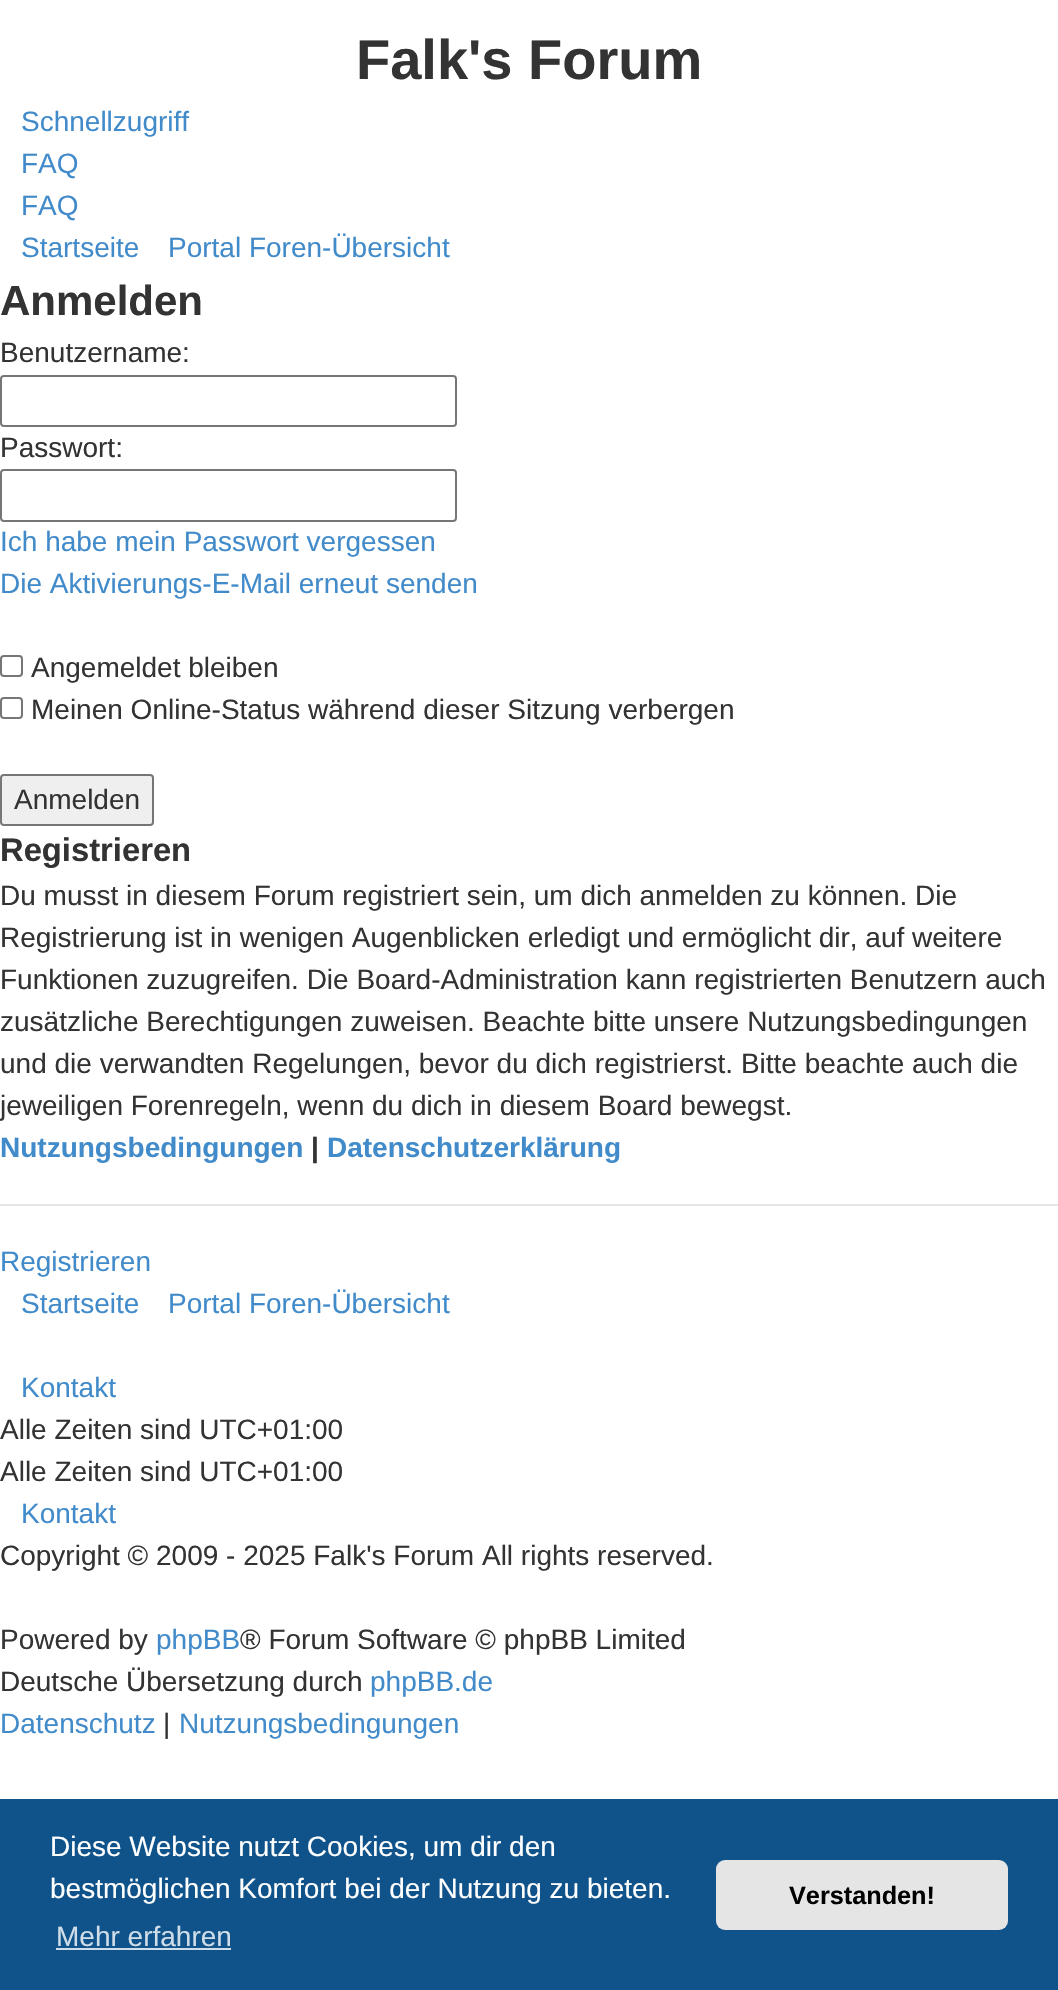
#include "include/core/SkBlurTypes.h"
#include "include/core/SkCanvas.h"
#include "include/core/SkData.h"
#include "include/core/SkFont.h"
#include "include/core/SkFontMgr.h"
#include "include/core/SkImage.h"
#include "include/core/SkMaskFilter.h"
#include "include/core/SkPaint.h"
#include "include/core/SkPathBuilder.h"
#include "include/core/SkTextBlob.h"
#include "include/effects/SkDashPathEffect.h"
#include "include/effects/SkGradientShader.h"
#include "include/utils/SkParsePath.h"

extern sk_sp<SkFontMgr> fontMgr;

void draw(SkCanvas* canvas) {
    SkPaint p;
    p.setAntiAlias(true);
    auto font = [&](const char* family, int weight, float size, bool italic = false) {
        SkFontStyle style(weight, SkFontStyle::kNormal_Width,
            italic ? SkFontStyle::kItalic_Slant : SkFontStyle::kUpright_Slant);
        SkFont result(fontMgr->matchFamilyStyle(family, style), size);
        result.setSubpixel(true);
        return result;
    };
    canvas->clear(0xFFFFFFFF);
    auto font1 = font("Liberation Sans", 700, 56);
    p.setColor(0xFF333333);
    canvas->drawString("Falk's Forum", 356, 79, font1, p);
    auto font2 = font("Liberation Sans", 400, 28);
    p.setColor(0xFF428BCA);
    {
        const struct { const char* s; float x, y; } items[] = {
            {"Schnellzugriff", 21, 131},
            {"FAQ", 21, 173},
            {"FAQ", 21, 215},
            {"Startseite", 21, 257},
            {"Portal Foren-Übersicht", 168, 257},
        };
        for (auto [s, x, y] : items) {
            canvas->drawString(s, x, y, font2, p);
        }
    }
    auto font3 = font("Liberation Sans", 700, 42);
    p.setColor(0xFF333333);
    canvas->drawString("Anmelden", 0, 315, font3, p);
    canvas->drawString("Benutzername:", 0, 362, font2, p);
    p.setStyle(SkPaint::kStroke_Style);
    p.setStrokeWidth(2);
    p.setColor(0xFF767676);
    canvas->drawRoundRect(SkRect::MakeLTRB(1, 376, 456, 426), 3, 3, p);
    p.setStyle(SkPaint::kFill_Style);
    p.setColor(0xFF333333);
    canvas->drawString("Passwort:", 0, 457, font2, p);
    p.setStyle(SkPaint::kStroke_Style);
    p.setColor(0xFF767676);
    canvas->drawRoundRect(SkRect::MakeLTRB(1, 470, 456, 521), 3, 3, p);
    p.setStyle(SkPaint::kFill_Style);
    p.setColor(0xFF428BCA);
    canvas->drawString("Ich habe mein Passwort vergessen", 0, 551, font2, p);
    canvas->drawString("Die Aktivierungs-E-Mail erneut senden", 0, 593, font2, p);
    p.setStyle(SkPaint::kStroke_Style);
    p.setColor(0xFF767676);
    canvas->drawRoundRect(SkRect::MakeLTRB(1, 656, 22, 676), 3, 3, p);
    p.setStyle(SkPaint::kFill_Style);
    p.setColor(0xFF333333);
    canvas->drawString("Angemeldet bleiben", 31, 677, font2, p);
    p.setStyle(SkPaint::kStroke_Style);
    p.setColor(0xFF767676);
    canvas->drawRoundRect(SkRect::MakeLTRB(1, 698, 22, 718), 3, 3, p);
    p.setStyle(SkPaint::kFill_Style);
    p.setColor(0xFF333333);
    canvas->drawString("Meinen Online-Status während dieser Sitzung verbergen", 31, 719, font2, p);
    p.setColor(0xFFEFEFEF);
    canvas->drawRoundRect(SkRect::MakeLTRB(1, 775, 153, 825), 3, 3, p);
    p.setStyle(SkPaint::kStroke_Style);
    p.setColor(0xFF767676);
    canvas->drawRoundRect(SkRect::MakeLTRB(1, 775, 153, 825), 3, 3, p);
    p.setStyle(SkPaint::kFill_Style);
    p.setColor(0xFF333333);
    canvas->drawString("Anmelden", 14, 809, font2, p);
    auto font4 = font("Liberation Sans", 700, 32.75f);
    canvas->drawString("Registrieren", 0, 861, font4, p);
    {
        const struct { const char* s; float x, y; } items[] = {
            {"Du musst in diesem Forum registriert sein, um dich anmelden zu können. Die", 0, 905},
            {"Registrierung ist in wenigen Augenblicken erledigt und ermöglicht dir, auf weitere", 0, 947},
            {"Funktionen zuzugreifen. Die Board-Administration kann registrierten Benutzern auch", 0, 989},
            {"zusätzliche Berechtigungen zuweisen. Beachte bitte unsere Nutzungsbedingungen", 0, 1031},
            {"und die verwandten Regelungen, bevor du dich registrierst. Bitte beachte auch die", 0, 1073},
            {"jeweiligen Forenregeln, wenn du dich in diesem Board bewegst.", 0, 1115},
        };
        for (auto [s, x, y] : items) {
            canvas->drawString(s, x, y, font2, p);
        }
    }
    auto font5 = font("Liberation Sans", 700, 28);
    p.setColor(0xFF428BCA);
    canvas->drawString("Nutzungsbedingungen", 0, 1157, font5, p);
    p.setColor(0xFF333333);
    canvas->drawString("|", 311, 1157, font5, p);
    p.setColor(0xFF428BCA);
    canvas->drawString("Datenschutzerklärung", 327, 1157, font5, p);
    p.setColor(0xFFE5E5E5);
    canvas->drawRect(SkRect::MakeLTRB(0, 1204, 1058, 1206), p);
    p.setColor(0xFF428BCA);
    {
        const struct { const char* s; float x, y; } items[] = {
            {"Registrieren", 0, 1271},
            {"Startseite", 21, 1313},
            {"Portal Foren-Übersicht", 168, 1313},
            {"Kontakt", 21, 1397},
        };
        for (auto [s, x, y] : items) {
            canvas->drawString(s, x, y, font2, p);
        }
    }
    p.setColor(0xFF333333);
    canvas->drawString("Alle Zeiten sind UTC+01:00", 0, 1439, font2, p);
    canvas->drawString("Alle Zeiten sind UTC+01:00", 0, 1481, font2, p);
    p.setColor(0xFF428BCA);
    canvas->drawString("Kontakt", 21, 1523, font2, p);
    p.setColor(0xFF333333);
    canvas->drawString("Copyright © 2009 - 2025 Falk's Forum All rights reserved.", 0, 1565, font2, p);
    canvas->drawString("Powered by", 0, 1649, font2, p);
    p.setColor(0xFF428BCA);
    canvas->drawString("phpBB", 156, 1649, font2, p);
    p.setColor(0xFF333333);
    canvas->drawString("® Forum Software © phpBB Limited", 240, 1649, font2, p);
    canvas->drawString("Deutsche Übersetzung durch", 0, 1691, font2, p);
    p.setColor(0xFF428BCA);
    canvas->drawString("phpBB.de", 370, 1691, font2, p);
    canvas->drawString("Datenschutz", 0, 1733, font2, p);
    p.setColor(0xFF333333);
    canvas->drawString("|", 163, 1733, font2, p);
    p.setColor(0xFF428BCA);
    canvas->drawString("Nutzungsbedingungen", 179, 1733, font2, p);
    p.setColor(0xFF0F538A);
    canvas->drawRect(SkRect::MakeLTRB(0, 1799, 1058, 1990), p);
    p.setColor(0xFFFFFFFF);
    canvas->drawString("Diese Website nutzt Cookies, um dir den", 50, 1856, font2, p);
    canvas->drawString("bestmöglichen Komfort bei der Nutzung zu bieten.", 50, 1898, font2, p);
    p.setColor(0xFFCFDDE8);
    canvas->drawString("Mehr erfahren", 56, 1946, font2, p);
    canvas->drawRect(SkRect::MakeLTRB(56, 1948, 231, 1950), p);
    p.setColor(0xFFE5E5E5);
    canvas->drawRoundRect(SkRect::MakeLTRB(716, 1860, 1008, 1930), 9, 9, p);
    auto font6 = font("Liberation Sans", 700, 25.25f);
    p.setColor(0xFF000000);
    canvas->drawString("Verstanden!", 789, 1904, font6, p);
}
